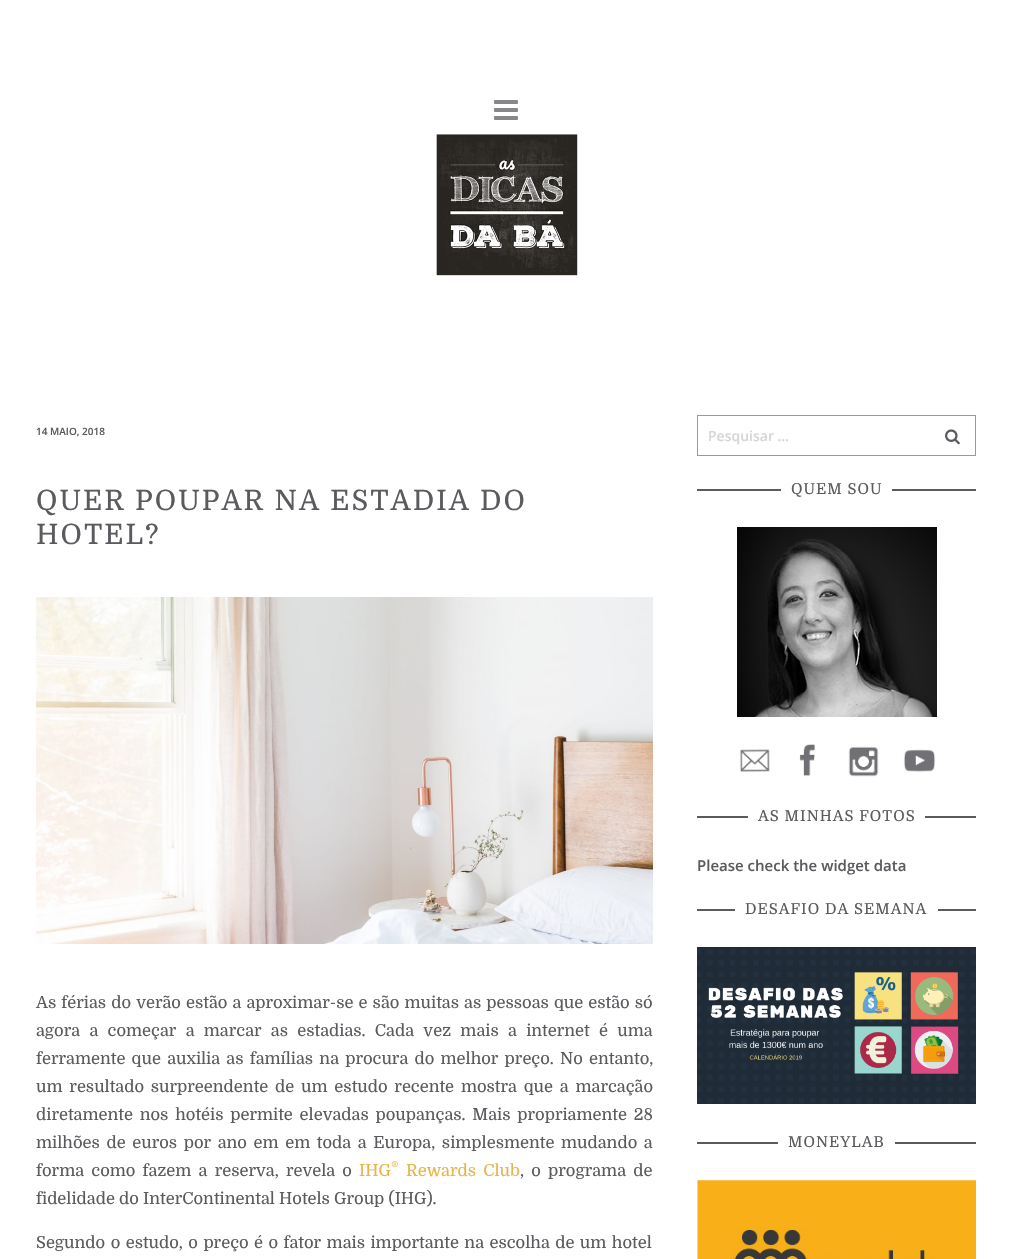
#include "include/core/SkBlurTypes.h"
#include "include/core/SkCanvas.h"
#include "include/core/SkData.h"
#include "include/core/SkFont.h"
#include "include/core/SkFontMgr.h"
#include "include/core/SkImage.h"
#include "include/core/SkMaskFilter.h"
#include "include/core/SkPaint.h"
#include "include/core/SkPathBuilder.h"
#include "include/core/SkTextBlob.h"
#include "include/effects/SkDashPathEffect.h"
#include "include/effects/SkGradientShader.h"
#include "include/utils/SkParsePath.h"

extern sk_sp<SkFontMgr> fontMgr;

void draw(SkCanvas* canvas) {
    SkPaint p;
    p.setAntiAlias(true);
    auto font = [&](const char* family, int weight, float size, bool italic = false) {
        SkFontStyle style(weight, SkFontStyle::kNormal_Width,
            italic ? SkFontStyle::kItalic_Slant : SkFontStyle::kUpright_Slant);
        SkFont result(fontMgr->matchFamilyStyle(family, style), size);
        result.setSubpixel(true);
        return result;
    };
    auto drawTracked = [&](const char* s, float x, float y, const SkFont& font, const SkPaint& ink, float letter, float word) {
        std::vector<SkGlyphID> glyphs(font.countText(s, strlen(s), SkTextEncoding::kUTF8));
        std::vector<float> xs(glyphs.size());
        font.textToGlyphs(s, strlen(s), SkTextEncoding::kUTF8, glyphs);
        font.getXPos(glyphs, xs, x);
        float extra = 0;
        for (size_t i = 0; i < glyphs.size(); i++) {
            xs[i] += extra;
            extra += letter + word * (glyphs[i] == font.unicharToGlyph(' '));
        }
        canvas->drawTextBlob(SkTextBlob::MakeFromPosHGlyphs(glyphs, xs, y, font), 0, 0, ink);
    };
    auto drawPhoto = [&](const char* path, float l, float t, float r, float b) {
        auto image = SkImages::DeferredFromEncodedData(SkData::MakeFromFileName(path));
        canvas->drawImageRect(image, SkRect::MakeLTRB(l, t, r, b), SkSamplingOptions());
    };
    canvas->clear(0xFFFFFFFF);
    drawPhoto("media/1.png", 494, 100, 518, 120);
    drawPhoto("media/2.png", 436, 134, 578, 276);
    auto font1 = font("Open Sans", 600, 10);
    p.setColor(0xFF5B5B5F);
    canvas->drawString("14 MAIO, 2018", 36, 435, font1, p);
    auto font2 = font("Domine", 400, 28);
    drawTracked("QUER POUPAR NA ESTADIA DO", 36, 510, font2, p, 2, 0);
    drawTracked("HOTEL?", 36, 544, font2, p, 2, 0);
    drawPhoto("media/3.png", 36, 597, 653, 944);
    auto font3 = font("Domine", 400, 16.5f);
    drawTracked("As férias do verão estão a aproximar-se e são muitas as pessoas que estão só", 36, 1008, font3, p, 0, 0.9f);
    drawTracked("agora a começar a marcar as estadias. Cada vez mais a internet é uma", 36, 1036, font3, p, 0, 5.1f);
    drawTracked("ferramente que auxilia as famílias na procura do melhor preço. No entanto,", 36, 1064, font3, p, 0, 2);
    drawTracked("um resultado surpreendente de um estudo recente mostra que a marcação", 36, 1092, font3, p, 0, 2.6f);
    drawTracked("diretamente nos hotéis permite elevadas poupanças. Mais propriamente 28", 36, 1120, font3, p, 0, 2.6f);
    drawTracked("milhões de euros por ano em em toda a Europa, simplesmente mudando a", 36, 1148, font3, p, 0, 2.4f);
    drawTracked("forma como fazem a reserva, revela o", 36, 1176, font3, p, 0, 3);
    p.setColor(0xFFE6B54A);
    canvas->drawString("IHG", 359, 1176, font3, p);
    auto font4 = font("Domine", 400, 12);
    canvas->drawString("®", 391, 1170, font4, p);
    drawTracked("Rewards Club", 406, 1176, font3, p, 0, 3);
    p.setColor(0xFF5B5B5F);
    drawTracked(", o programa de", 520, 1176, font3, p, 0, 3);
    canvas->drawString("fidelidade do InterContinental Hotels Group (IHG).", 36, 1204, font3, p);
    drawTracked("Segundo o estudo, o preço é o fator mais importante na escolha de um hotel", 36, 1248, font3, p, 0, 1.25f);
    p.setStyle(SkPaint::kStroke_Style);
    p.setStrokeWidth(1);
    p.setColor(0xFF9A999E);
    canvas->drawRect(SkRect::MakeLTRB(697.5f, 415.5f, 975.5f, 455.5f), p);
    auto font5 = font("Open Sans", 600, 14);
    p.setStyle(SkPaint::kFill_Style);
    p.setColor(0xFFD6D6D7);
    canvas->drawString("Pesquisar …", 708, 441, font5, p);
    drawPhoto("media/4.png", 945, 429, 960, 445);
    p.setColor(0xFF5B5B5F);
    canvas->drawRect(SkRect::MakeLTRB(697, 489, 976, 491), p);
    p.setColor(0xFFFFFFFF);
    canvas->drawRect(SkRect::MakeLTRB(781, 489, 892, 491), p);
    auto font6 = font("Domine", 400, 15);
    p.setColor(0xFF5B5B5F);
    drawTracked("QUEM SOU", 791, 494, font6, p, 1, 0);
    drawPhoto("media/5.png", 737, 527, 937, 717);
    drawPhoto("media/6.png", 739, 749, 770, 772);
    drawPhoto("media/7.png", 799, 744, 815, 777);
    drawPhoto("media/8.png", 848, 746, 879, 777);
    drawPhoto("media/9.png", 903, 749, 936, 772);
    canvas->drawRect(SkRect::MakeLTRB(697, 816, 976, 818), p);
    p.setColor(0xFFFFFFFF);
    canvas->drawRect(SkRect::MakeLTRB(748, 816, 925, 818), p);
    p.setColor(0xFF5B5B5F);
    drawTracked("AS MINHAS FOTOS", 758, 821, font6, p, 1, 0);
    auto font7 = font("Open Sans", 600, 15);
    canvas->drawString("Please check the widget data", 697, 871, font7, p);
    canvas->drawRect(SkRect::MakeLTRB(697, 909, 976, 911), p);
    p.setColor(0xFFFFFFFF);
    canvas->drawRect(SkRect::MakeLTRB(735, 909, 938, 911), p);
    p.setColor(0xFF5B5B5F);
    drawTracked("DESAFIO DA SEMANA", 745, 914, font6, p, 1, 0);
    drawPhoto("media/10.png", 697, 947, 976, 1104);
    canvas->drawRect(SkRect::MakeLTRB(697, 1142, 976, 1144), p);
    p.setColor(0xFFFFFFFF);
    canvas->drawRect(SkRect::MakeLTRB(778, 1142, 895, 1144), p);
    p.setColor(0xFF5B5B5F);
    drawTracked("MONEYLAB", 788, 1147, font6, p, 1, 0);
    drawPhoto("media/11.png", 697, 1180, 976, 1259);
}
